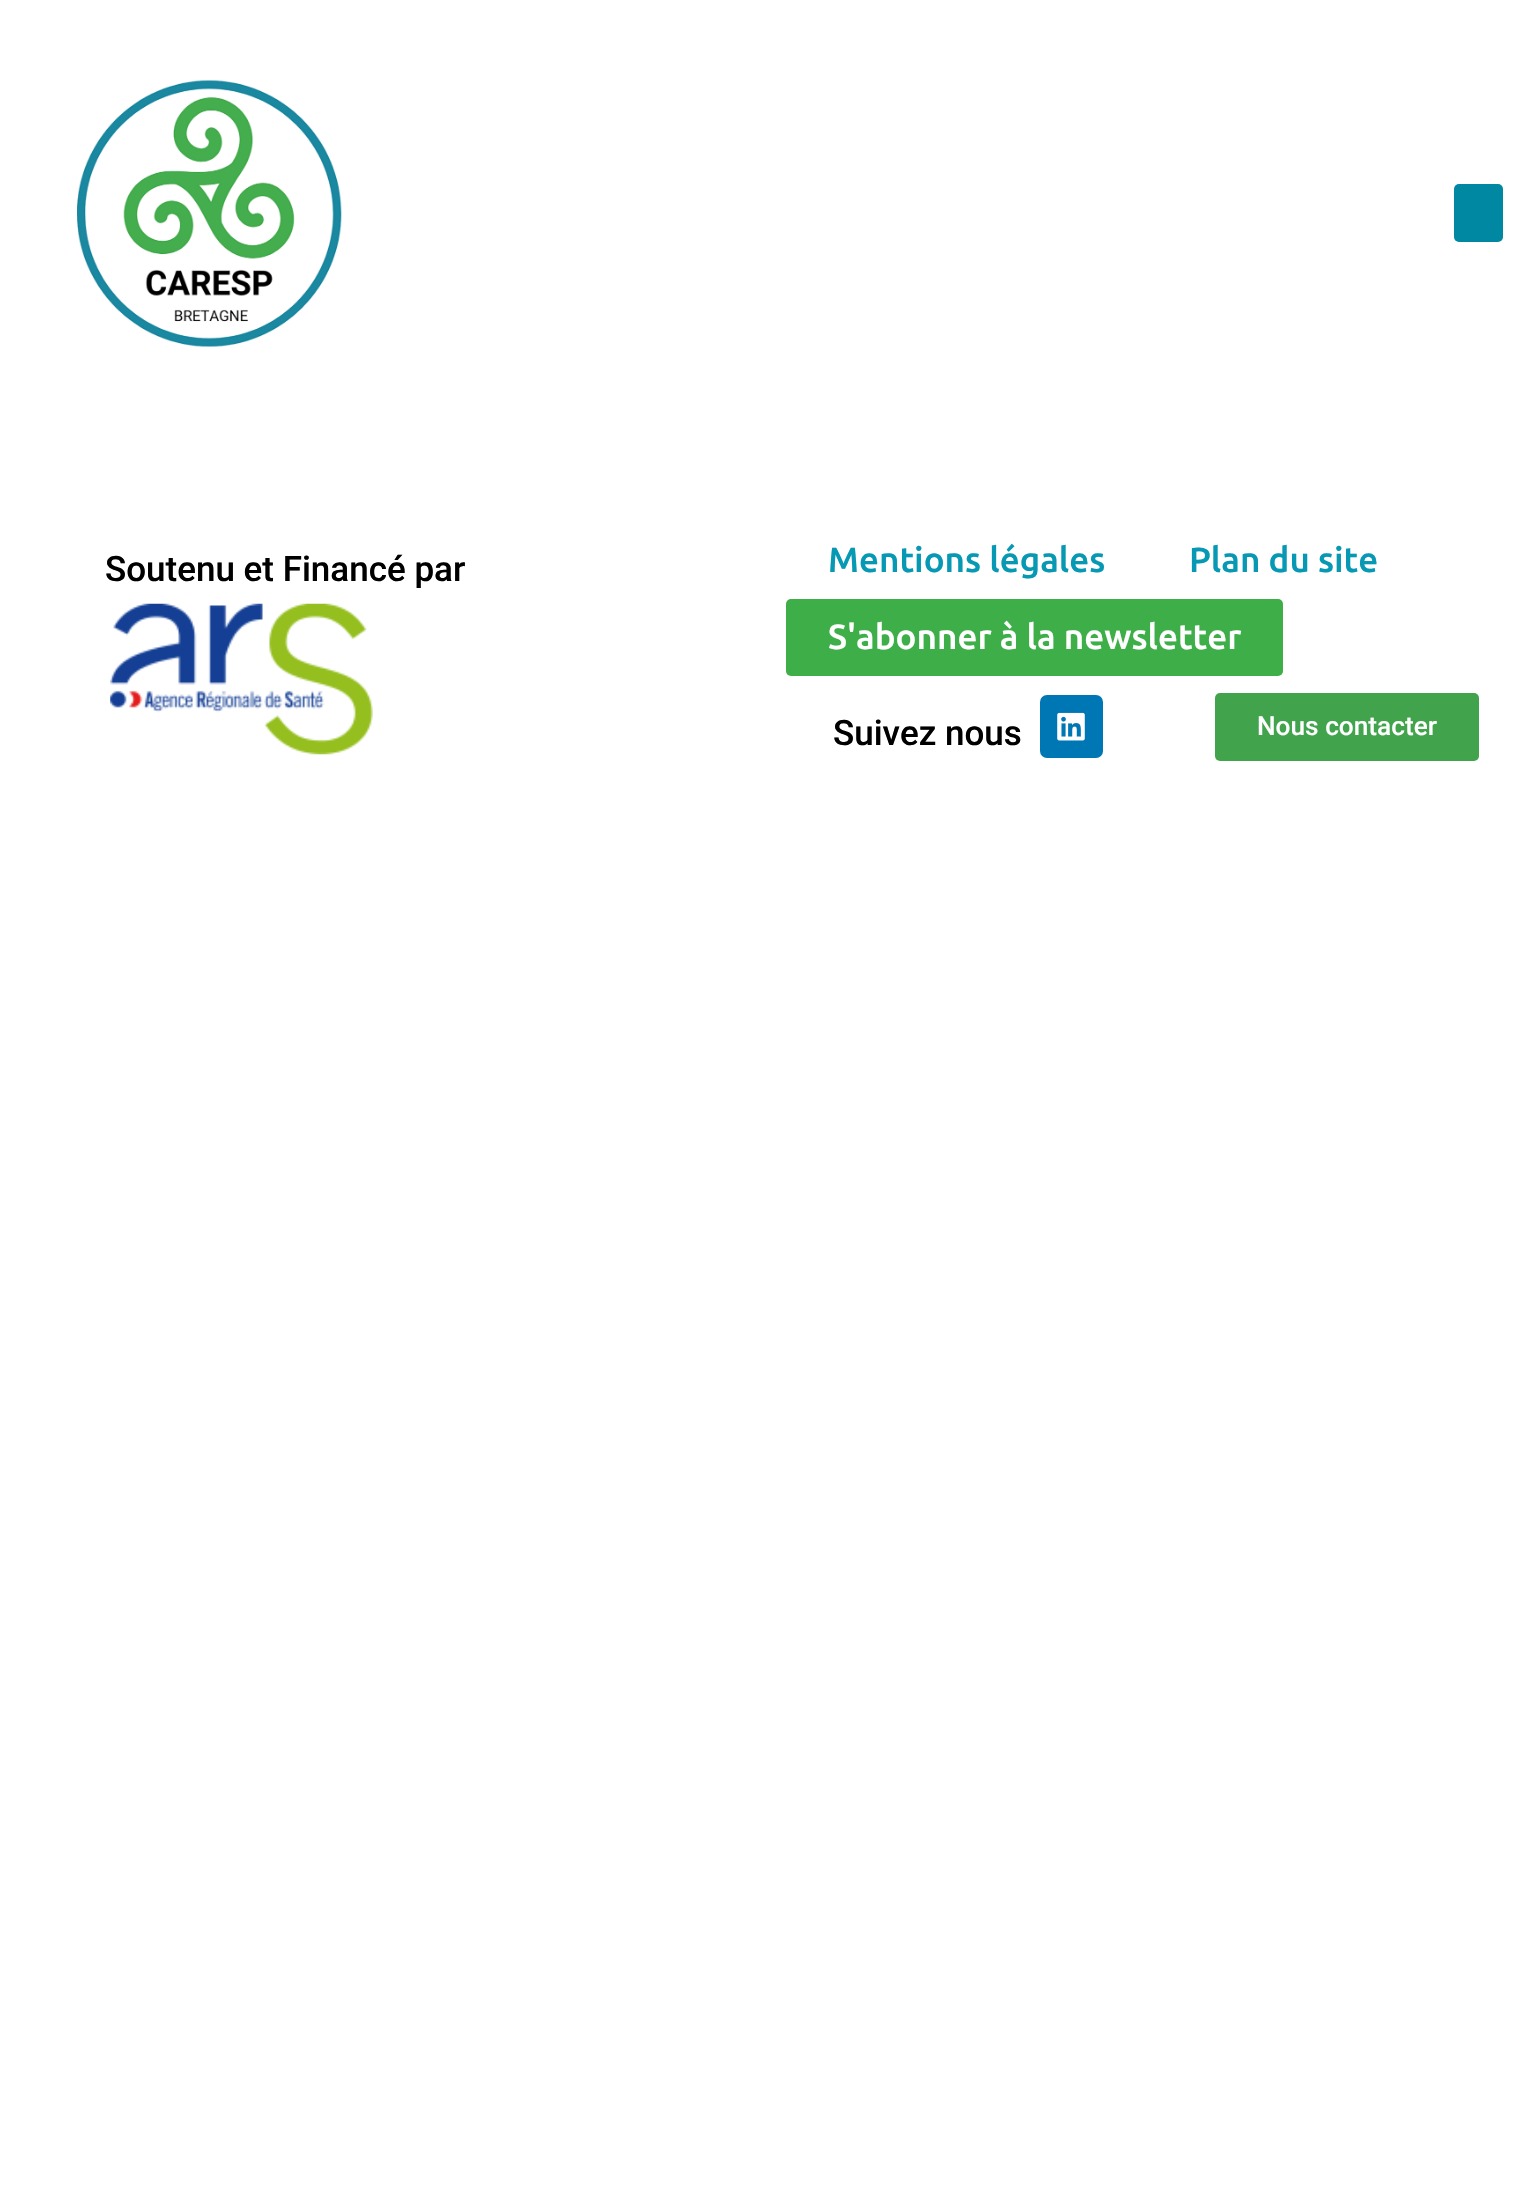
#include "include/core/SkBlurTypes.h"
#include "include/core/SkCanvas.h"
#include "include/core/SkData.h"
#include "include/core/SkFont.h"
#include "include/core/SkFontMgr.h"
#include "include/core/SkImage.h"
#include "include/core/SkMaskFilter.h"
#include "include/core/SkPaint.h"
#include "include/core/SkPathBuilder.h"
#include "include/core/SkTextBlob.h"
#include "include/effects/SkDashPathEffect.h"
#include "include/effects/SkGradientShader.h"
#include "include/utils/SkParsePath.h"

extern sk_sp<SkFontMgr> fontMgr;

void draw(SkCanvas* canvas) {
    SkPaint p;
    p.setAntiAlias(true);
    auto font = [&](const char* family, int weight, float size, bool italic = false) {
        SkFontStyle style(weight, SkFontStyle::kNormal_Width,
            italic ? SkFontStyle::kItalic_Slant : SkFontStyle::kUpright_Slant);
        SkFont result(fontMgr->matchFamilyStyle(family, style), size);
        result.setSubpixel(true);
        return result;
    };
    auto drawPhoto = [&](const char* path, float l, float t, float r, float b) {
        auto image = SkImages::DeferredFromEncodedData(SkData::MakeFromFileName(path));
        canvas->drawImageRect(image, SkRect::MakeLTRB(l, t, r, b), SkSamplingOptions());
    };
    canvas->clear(0xFFFFFFFF);
    drawPhoto("media/1.png", 77, 80, 342, 347);
    p.setColor(0xFF0088A2);
    canvas->drawRoundRect(SkRect::MakeLTRB(1454, 184, 1503, 242), 5, 5, p);
    auto font1 = font("Roboto", 500, 35);
    p.setColor(0xFF000000);
    canvas->drawString("Soutenu et Financé par", 105, 581, font1, p);
    drawPhoto("media/2.png", 110, 603, 373, 755);
    auto font2 = font("Ubuntu", 500, 35);
    p.setColor(0xFF0798B4);
    canvas->drawString("Mentions légales", 828, 572, font2, p);
    canvas->drawString("Plan du site", 1189, 572, font2, p);
    p.setColor(0xFF3DAE48);
    canvas->drawRoundRect(SkRect::MakeLTRB(786, 599, 1283, 676), 5, 5, p);
    p.setColor(0xFFFFFFFF);
    canvas->drawString("S'abonner à la newsletter", 828, 649, font2, p);
    p.setColor(0xFF000000);
    canvas->drawString("Suivez nous", 833, 745, font1, p);
    p.setColor(0xFF0077B5);
    canvas->drawRoundRect(SkRect::MakeLTRB(1040, 695, 1103, 758), 7, 7, p);
    drawPhoto("media/3.png", 1057, 712, 1085, 741);
    p.setColor(0xFF41A44C);
    canvas->drawRoundRect(SkRect::MakeLTRB(1215, 693, 1479, 761), 5, 5, p);
    auto font3 = font("Roboto", 500, 26.25f);
    p.setColor(0xFFFFFFFF);
    canvas->drawString("Nous contacter", 1257, 735, font3, p);
}
